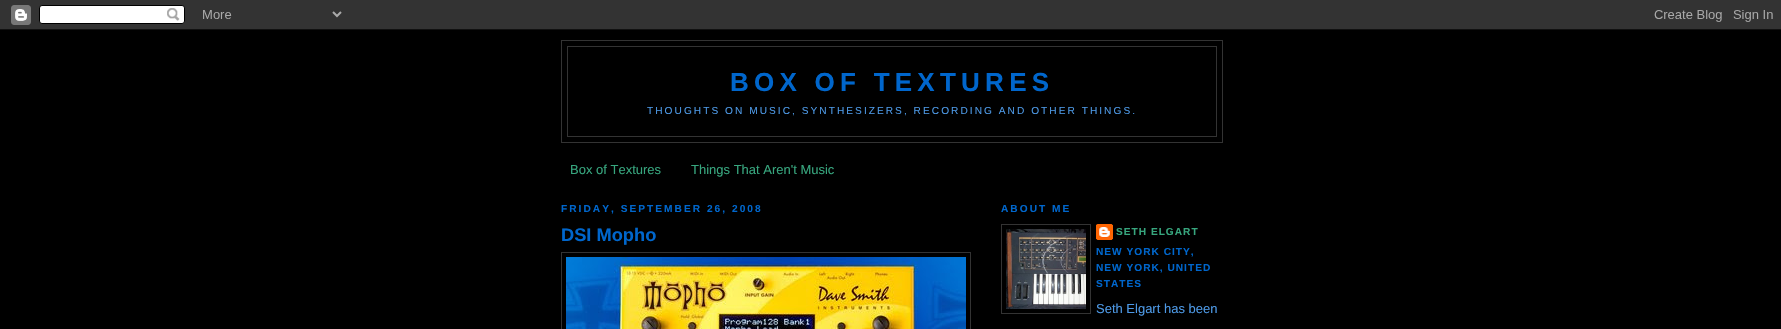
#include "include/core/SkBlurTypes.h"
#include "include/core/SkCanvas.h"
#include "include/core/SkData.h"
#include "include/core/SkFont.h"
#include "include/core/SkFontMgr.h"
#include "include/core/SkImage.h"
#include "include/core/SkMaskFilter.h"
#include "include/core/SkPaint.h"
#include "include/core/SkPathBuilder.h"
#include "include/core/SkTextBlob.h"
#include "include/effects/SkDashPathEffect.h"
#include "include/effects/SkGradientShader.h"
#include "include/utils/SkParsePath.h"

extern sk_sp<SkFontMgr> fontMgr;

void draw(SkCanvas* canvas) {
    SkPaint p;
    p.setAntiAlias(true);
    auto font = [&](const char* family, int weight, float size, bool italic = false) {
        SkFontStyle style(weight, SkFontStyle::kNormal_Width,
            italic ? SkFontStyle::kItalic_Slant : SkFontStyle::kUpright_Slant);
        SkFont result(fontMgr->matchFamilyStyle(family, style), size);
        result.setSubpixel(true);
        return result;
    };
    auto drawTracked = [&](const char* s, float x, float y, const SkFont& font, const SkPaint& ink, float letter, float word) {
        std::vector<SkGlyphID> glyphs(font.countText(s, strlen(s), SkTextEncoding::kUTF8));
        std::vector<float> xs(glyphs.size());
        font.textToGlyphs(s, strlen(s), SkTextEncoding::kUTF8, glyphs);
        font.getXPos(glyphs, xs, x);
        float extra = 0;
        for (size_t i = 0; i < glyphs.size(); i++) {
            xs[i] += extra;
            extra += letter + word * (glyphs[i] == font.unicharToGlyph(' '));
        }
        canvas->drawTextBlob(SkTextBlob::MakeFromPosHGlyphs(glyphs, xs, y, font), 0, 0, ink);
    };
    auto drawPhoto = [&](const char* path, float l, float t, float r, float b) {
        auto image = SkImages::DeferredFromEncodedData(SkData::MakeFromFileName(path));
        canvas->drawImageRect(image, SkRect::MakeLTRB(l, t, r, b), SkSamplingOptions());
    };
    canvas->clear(0xFF000000);
    drawPhoto("media/1.png", 0, 0, 1781, 30);
    p.setStyle(SkPaint::kStroke_Style);
    p.setStrokeWidth(1);
    p.setColor(0xFF333333);
    canvas->drawRect(SkRect::MakeLTRB(561.5f, 40.5f, 1222.5f, 142.5f), p);
    canvas->drawRect(SkRect::MakeLTRB(567.5f, 46.5f, 1216.5f, 136.5f), p);
    auto font1 = font("Liberation Sans", 700, 26);
    p.setStyle(SkPaint::kFill_Style);
    p.setColor(0xFF0066CC);
    drawTracked("BOX OF TEXTURES", 730, 91, font1, p, 5.25f, 0);
    auto font2 = font("Liberation Sans", 400, 10.15f);
    p.setColor(0xFF4D99E6);
    drawTracked("THOUGHTS ON MUSIC, SYNTHESIZERS, RECORDING AND OTHER THINGS.", 647, 114, font2, p, 2.03f, 0);
    auto font3 = font("Liberation Sans", 400, 13);
    p.setColor(0xFF37A67E);
    canvas->drawString("Box of Textures", 570, 174, font3, p);
    canvas->drawString("Things That Aren't Music", 691, 174, font3, p);
    auto font4 = font("Liberation Sans", 700, 10.15f);
    p.setColor(0xFF0066CC);
    drawTracked("FRIDAY, SEPTEMBER 26, 2008", 561, 212, font4, p, 2.03f, 0);
    auto font5 = font("Liberation Sans", 700, 18.25f);
    canvas->drawString("DSI Mopho", 561, 241, font5, p);
    p.setStyle(SkPaint::kStroke_Style);
    p.setColor(0xFF333333);
    canvas->drawRect(SkRect::MakeLTRB(561.5f, 252.5f, 970.5f, 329.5f), p);
    drawPhoto("media/2.png", 566, 257, 966, 329);
    p.setStyle(SkPaint::kFill_Style);
    p.setColor(0xFF0066CC);
    drawTracked("ABOUT ME", 1001, 212, font4, p, 2.03f, 0);
    p.setStyle(SkPaint::kStroke_Style);
    p.setColor(0xFF333333);
    canvas->drawRect(SkRect::MakeLTRB(1001.5f, 224.5f, 1090.5f, 313.5f), p);
    drawPhoto("media/3.png", 1006, 229, 1086, 309);
    drawPhoto("media/4.png", 1096, 224, 1113, 240);
    p.setStyle(SkPaint::kFill_Style);
    p.setColor(0xFF37A67E);
    drawTracked("SETH ELGART", 1116, 235, font4, p, 1, 0);
    p.setColor(0xFF0066CC);
    {
        const struct { const char* s; float x, y; } items[] = {
            {"NEW YORK CITY,", 1096, 255},
            {"NEW YORK, UNITED", 1096, 271},
            {"STATES", 1096, 287},
        };
        for (auto [s, x, y] : items) {
            drawTracked(s, x, y, font4, p, 1, 0);
        }
    }
    p.setColor(0xFF4D99E6);
    canvas->drawString("Seth Elgart has been", 1096, 313, font3, p);
}
